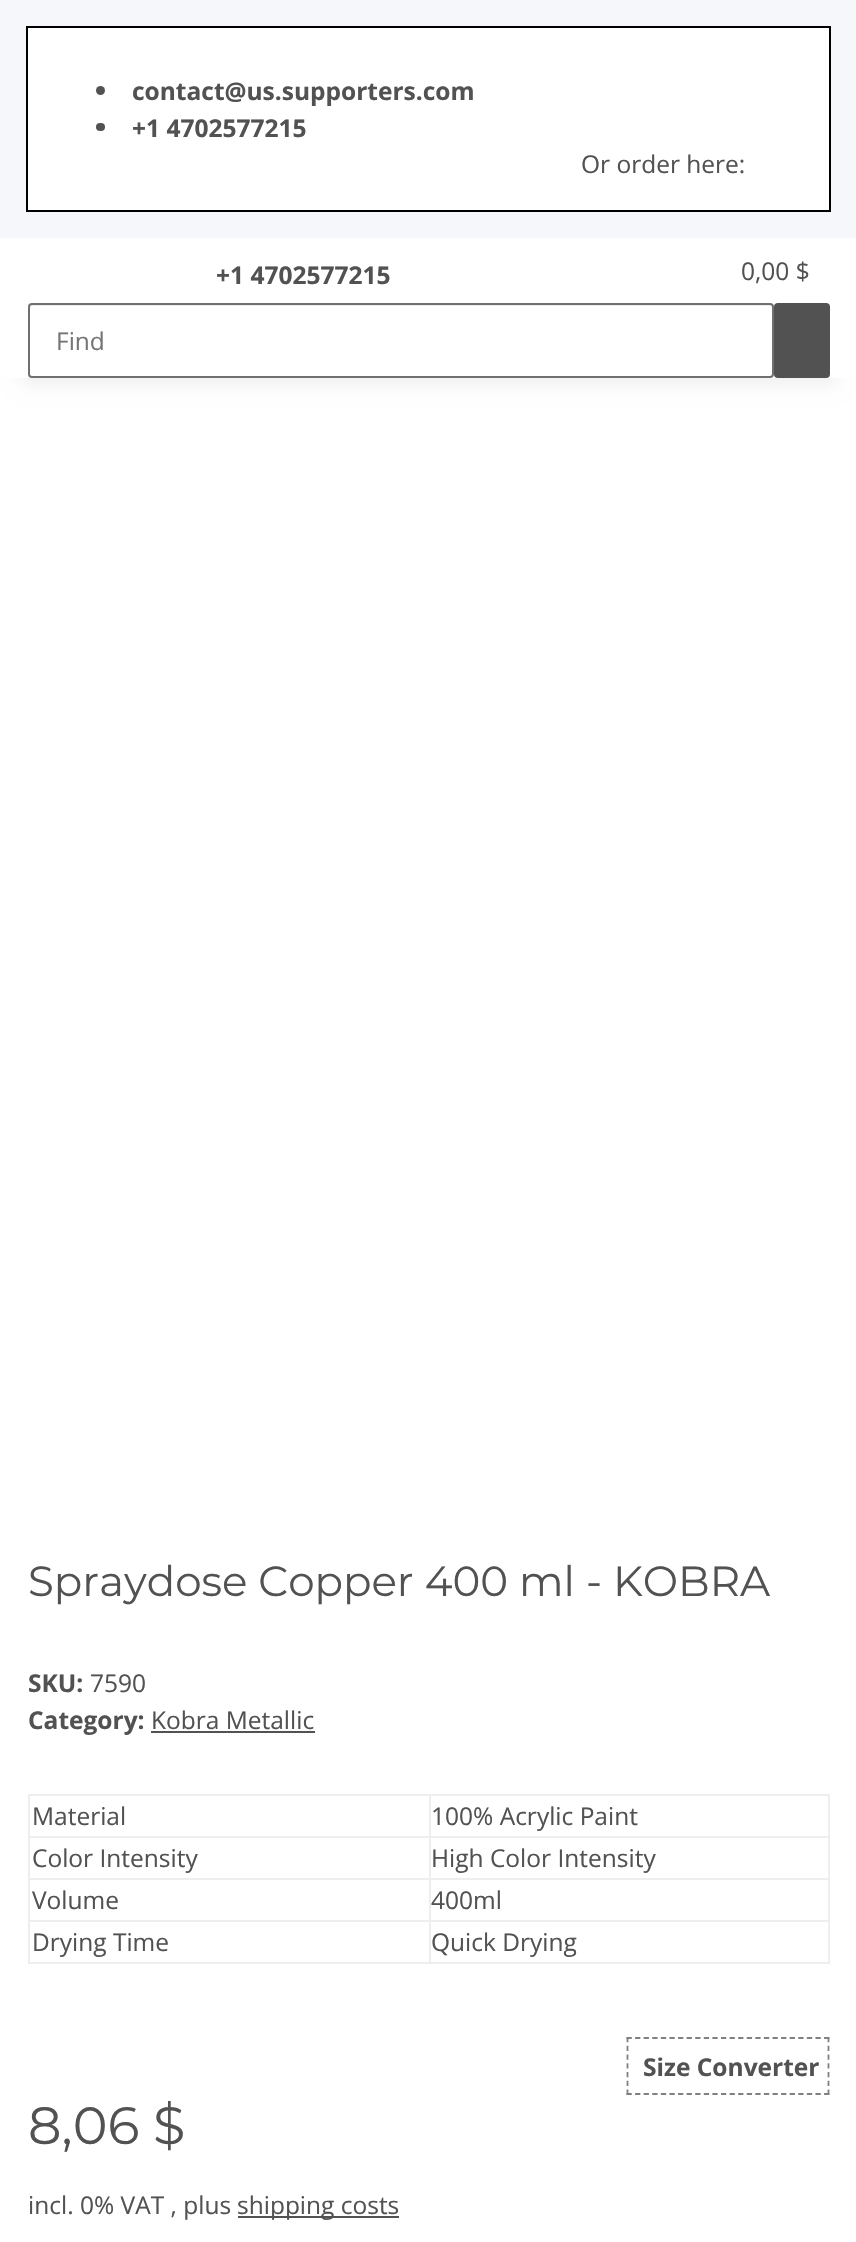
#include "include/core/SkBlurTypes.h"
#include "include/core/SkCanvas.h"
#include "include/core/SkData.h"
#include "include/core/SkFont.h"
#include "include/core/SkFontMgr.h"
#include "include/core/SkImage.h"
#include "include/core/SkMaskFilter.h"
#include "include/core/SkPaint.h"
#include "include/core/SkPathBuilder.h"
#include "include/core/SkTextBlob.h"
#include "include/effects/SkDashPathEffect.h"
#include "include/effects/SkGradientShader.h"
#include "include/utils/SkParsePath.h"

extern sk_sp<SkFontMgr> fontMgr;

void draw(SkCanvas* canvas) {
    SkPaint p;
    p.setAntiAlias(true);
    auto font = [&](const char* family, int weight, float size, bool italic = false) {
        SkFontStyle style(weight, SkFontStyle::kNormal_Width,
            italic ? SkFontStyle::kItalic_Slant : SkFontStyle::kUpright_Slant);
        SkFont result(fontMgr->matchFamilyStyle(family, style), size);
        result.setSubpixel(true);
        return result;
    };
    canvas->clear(0xFFF5F7FA);
    p.setColor(0xFFFFFFFF);
    canvas->drawRect(SkRect::MakeLTRB(27, 27, 830, 211), p);
    p.setStyle(SkPaint::kStroke_Style);
    p.setStrokeWidth(2);
    p.setColor(0xFF000000);
    canvas->drawRect(SkRect::MakeLTRB(27, 27, 830, 211), p);
    p.setStyle(SkPaint::kFill_Style);
    p.setColor(0xFF525252);
    canvas->drawCircle(100.5f, 90.5f, 4.5f, p);
    auto font1 = font("Open Sans", 700, 24.5f);
    canvas->drawString("contact@us.supporters.com", 132, 100, font1, p);
    canvas->drawRoundRect(SkRect::MakeLTRB(96, 123, 105, 131), 4, 4, p);
    canvas->drawString("+1 4702577215", 132, 137, font1, p);
    auto font2 = font("Open Sans", 400, 24.5f);
    canvas->drawString("Or order here:", 581, 173, font2, p);
    p.setColor(0xFFFFFFFF);
    canvas->drawRect(SkRect::MakeLTRB(0, 378, 856, 2242), p);
    p.setColor(0x0F000000);
    p.setMaskFilter(SkMaskFilter::MakeBlur(kNormal_SkBlurStyle, 8));
    canvas->drawRect(SkRect::MakeLTRB(21, 287, 837, 385), p);
    p.setMaskFilter(nullptr);
    p.setColor(0xFFFFFFFF);
    canvas->drawRect(SkRect::MakeLTRB(0, 238, 856, 378), p);
    p.setColor(0xFF525252);
    canvas->drawString("+1 4702577215", 216, 284, font1, p);
    canvas->drawString("0,00 $", 741, 280, font2, p);
    p.setColor(0xFFECECEC);
    canvas->drawPath(SkPathBuilder().moveTo(32, 306).lineTo(770, 306).cubicTo(771, 306, 772, 307, 772, 308).cubicTo(772, 307, 772, 305, 770, 305).lineTo(32, 305).cubicTo(30, 305, 30, 307, 30, 308).cubicTo(30, 307, 31, 306, 32, 306).close().detach(), p);
    p.setStyle(SkPaint::kStroke_Style);
    p.setColor(0xFF707070);
    canvas->drawRoundRect(SkRect::MakeLTRB(29, 304, 773, 377), 3, 3, p);
    p.setStyle(SkPaint::kFill_Style);
    p.setColor(0xFF757575);
    canvas->drawString("Find", 56, 350, font2, p);
    p.setColor(0xFF525252);
    canvas->drawRoundRect(SkRect::MakeLTRB(774, 303, 830, 378), 4, 4, p);
    auto font3 = font("Montserrat", 400, 42);
    canvas->drawString("Spraydose Copper 400 ml - KOBRA", 28, 1596, font3, p);
    canvas->drawString("SKU:", 28, 1692, font1, p);
    canvas->drawString("7590", 90, 1692, font2, p);
    canvas->drawString("Category:", 28, 1729, font1, p);
    canvas->drawString("Kobra Metallic", 151, 1729, font2, p);
    {
        const struct { float l, t, r, b; SkColor color; } items[] = {
            {151, 1731, 315, 1733, 0xFF525252},
            {429, 1794, 830, 1796, 0xFFEEEEEE},
            {429, 1836, 830, 1838, 0xFFEEEEEE},
            {429, 1878, 830, 1880, 0xFFEEEEEE},
            {429, 1920, 830, 1922, 0xFFEEEEEE},
            {828, 1920, 830, 1964, 0xFFEEEEEE},
            {429, 1962, 830, 1964, 0xFFEEEEEE},
            {429, 1920, 431, 1964, 0xFFEEEEEE},
            {28, 1920, 431, 1922, 0xFFEEEEEE},
            {429, 1878, 431, 1922, 0xFFEEEEEE},
            {28, 1878, 431, 1880, 0xFFEEEEEE},
            {429, 1836, 431, 1880, 0xFFEEEEEE},
            {28, 1836, 431, 1838, 0xFFEEEEEE},
            {429, 1794, 431, 1838, 0xFFEEEEEE},
            {28, 1794, 431, 1796, 0xFFEEEEEE},
            {28, 1962, 431, 1964, 0xFFEEEEEE},
            {28, 1920, 30, 1964, 0xFFEEEEEE},
            {28, 1878, 30, 1922, 0xFFEEEEEE},
            {28, 1836, 30, 1880, 0xFFEEEEEE},
            {28, 1794, 30, 1838, 0xFFEEEEEE},
        };
        for (auto [l, t, r, b, color] : items) {
            p.setColor(color);
            canvas->drawRect(SkRect::MakeLTRB(l, t, r, b), p);
        }
    }
    p.setColor(0xFF525252);
    canvas->drawString("Material", 32, 1825, font2, p);
    {
        const struct { float l, t, r, b; SkColor color; } items[] = {
            {828, 1878, 830, 1922, 0xFFEEEEEE},
            {828, 1836, 830, 1880, 0xFFEEEEEE},
            {828, 1794, 830, 1838, 0xFFEEEEEE},
        };
        for (auto [l, t, r, b, color] : items) {
            p.setColor(color);
            canvas->drawRect(SkRect::MakeLTRB(l, t, r, b), p);
        }
    }
    p.setColor(0xFF525252);
    {
        const struct { const char* s; float x, y; } items[] = {
            {"100% Acrylic Paint", 431, 1825},
            {"Color Intensity", 32, 1867},
            {"High Color Intensity", 431, 1867},
            {"Volume", 32, 1909},
            {"400ml", 431, 1909},
            {"Drying Time", 32, 1951},
            {"Quick Drying", 431, 1951},
        };
        for (auto [s, x, y] : items) {
            canvas->drawString(s, x, y, font2, p);
        }
    }
    p.setStyle(SkPaint::kStroke_Style);
    p.setStrokeWidth(1.8f);
    p.setColor(0xFF808080);
    p.setPathEffect(SkDashPathEffect::Make({{5.25f, 3.34f}}, 0));
    canvas->drawPath(SkPathBuilder().moveTo(626.5f, 2038).lineTo(829.5f, 2038).detach(), p);
    p.setPathEffect(nullptr);
    p.setPathEffect(SkDashPathEffect::Make({{5.25f, 3.5f}}, 0));
    canvas->drawPath(SkPathBuilder().moveTo(828.5f, 2037).lineTo(828.5f, 2095).detach(), p);
    p.setPathEffect(nullptr);
    p.setPathEffect(SkDashPathEffect::Make({{5.25f, 3.34f}}, 0));
    canvas->drawPath(SkPathBuilder().moveTo(626.5f, 2094).lineTo(829.5f, 2094).detach(), p);
    p.setPathEffect(nullptr);
    p.setPathEffect(SkDashPathEffect::Make({{5.25f, 3.5f}}, 0));
    canvas->drawPath(SkPathBuilder().moveTo(627.5f, 2037).lineTo(627.5f, 2095).detach(), p);
    p.setPathEffect(nullptr);
    p.setStyle(SkPaint::kFill_Style);
    p.setColor(0xFF525252);
    canvas->drawString("Size Converter", 643, 2076, font1, p);
    auto font4 = font("Montserrat", 400, 52.5f);
    canvas->drawString("8,06 $", 28, 2144, font4, p);
    canvas->drawString("incl. 0% VAT , plus", 28, 2214, font2, p);
    canvas->drawRect(SkRect::MakeLTRB(238, 2216, 399, 2218), p);
    canvas->drawString("shipping costs", 237, 2214, font2, p);
}
